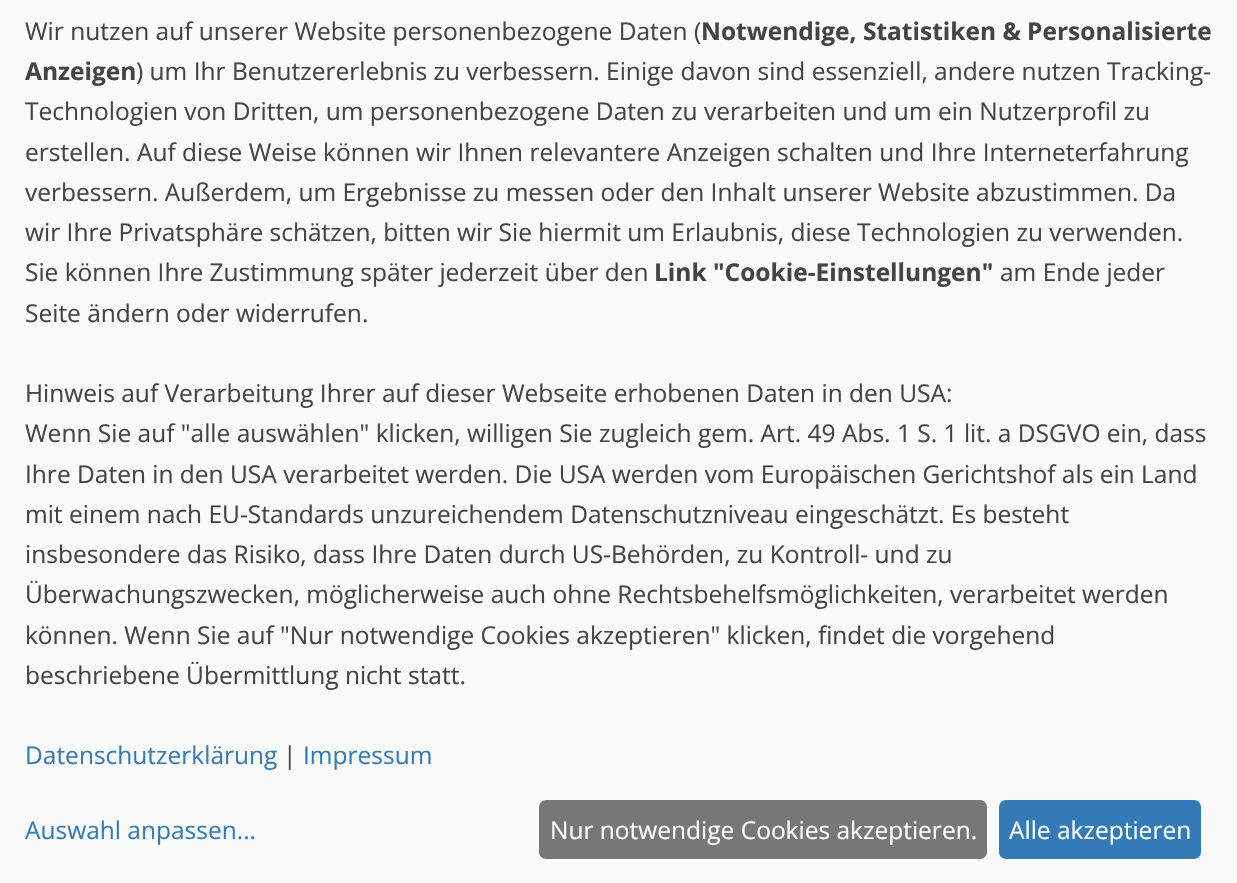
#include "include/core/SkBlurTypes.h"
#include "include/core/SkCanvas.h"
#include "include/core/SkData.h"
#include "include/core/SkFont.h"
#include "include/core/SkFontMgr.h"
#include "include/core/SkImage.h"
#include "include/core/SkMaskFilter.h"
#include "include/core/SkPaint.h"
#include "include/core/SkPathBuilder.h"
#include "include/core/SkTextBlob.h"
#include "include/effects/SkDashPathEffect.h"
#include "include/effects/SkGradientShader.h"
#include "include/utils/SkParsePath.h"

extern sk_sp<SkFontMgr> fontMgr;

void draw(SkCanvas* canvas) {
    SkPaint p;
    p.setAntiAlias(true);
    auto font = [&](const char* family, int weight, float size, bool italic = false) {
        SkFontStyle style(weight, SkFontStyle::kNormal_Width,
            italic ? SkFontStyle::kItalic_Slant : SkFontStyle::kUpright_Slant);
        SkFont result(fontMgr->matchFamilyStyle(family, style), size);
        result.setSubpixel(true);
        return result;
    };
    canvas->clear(0xFFFAFAFA);
    auto font1 = font("Open Sans", 400, 24.5f);
    p.setColor(0xFF444444);
    canvas->drawString("Wir nutzen auf unserer Website personenbezogene Daten (", 25, 40, font1, p);
    auto font2 = font("Open Sans", 700, 24.5f);
    canvas->drawString("Notwendige, Statistiken & Personalisierte", 701, 40, font2, p);
    canvas->drawString("Anzeigen", 25, 80, font2, p);
    {
        const struct { const char* s; float x, y; } items[] = {
            {") um Ihr Benutzererlebnis zu verbessern. Einige davon sind essenziell, andere nutzen Tracking-", 136, 80},
            {"Technologien von Dritten, um personenbezogene Daten zu verarbeiten und um ein Nutzerprofil zu", 25, 120},
            {"erstellen. Auf diese Weise können wir Ihnen relevantere Anzeigen schalten und Ihre Interneterfahrung", 25, 161},
            {"verbessern. Außerdem, um Ergebnisse zu messen oder den Inhalt unserer Website abzustimmen. Da", 25, 201},
            {"wir Ihre Privatsphäre schätzen, bitten wir Sie hiermit um Erlaubnis, diese Technologien zu verwenden.", 25, 241},
            {"Sie können Ihre Zustimmung später jederzeit über den", 25, 281},
        };
        for (auto [s, x, y] : items) {
            canvas->drawString(s, x, y, font1, p);
        }
    }
    canvas->drawString("Link \"Cookie-Einstellungen\"", 654, 281, font2, p);
    {
        const struct { const char* s; float x, y; } items[] = {
            {"am Ende jeder", 1000, 281},
            {"Seite ändern oder widerrufen.", 25, 322},
            {"Hinweis auf Verarbeitung Ihrer auf dieser Webseite erhobenen Daten in den USA:", 25, 402},
            {"Wenn Sie auf \"alle auswählen\" klicken, willigen Sie zugleich gem. Art. 49 Abs. 1 S. 1 lit. a DSGVO ein, dass", 25, 442},
            {"Ihre Daten in den USA verarbeitet werden. Die USA werden vom Europäischen Gerichtshof als ein Land", 25, 483},
            {"mit einem nach EU-Standards unzureichendem Datenschutzniveau eingeschätzt. Es besteht", 25, 523},
            {"insbesondere das Risiko, dass Ihre Daten durch US-Behörden, zu Kontroll- und zu", 25, 563},
            {"Überwachungszwecken, möglicherweise auch ohne Rechtsbehelfsmöglichkeiten, verarbeitet werden", 25, 603},
            {"können. Wenn Sie auf \"Nur notwendige Cookies akzeptieren\" klicken, findet die vorgehend", 25, 644},
            {"beschriebene Übermittlung nicht statt.", 25, 684},
        };
        for (auto [s, x, y] : items) {
            canvas->drawString(s, x, y, font1, p);
        }
    }
    p.setColor(0xFF337AB7);
    canvas->drawString("Datenschutzerklärung", 25, 764, font1, p);
    p.setColor(0xFF444444);
    canvas->drawString("|", 283, 764, font1, p);
    p.setColor(0xFF337AB7);
    canvas->drawString("Impressum", 303, 764, font1, p);
    canvas->drawString("Auswahl anpassen...", 25, 839, font1, p);
    p.setColor(0xFF777777);
    canvas->drawRoundRect(SkRect::MakeLTRB(539, 800, 987, 859), 7, 7, p);
    p.setColor(0xFFFFFFFF);
    canvas->drawString("Nur notwendige Cookies akzeptieren.", 550, 839, font1, p);
    p.setColor(0xFF337AB7);
    canvas->drawRoundRect(SkRect::MakeLTRB(999, 800, 1201, 859), 7, 7, p);
    p.setColor(0xFFFFFFFF);
    canvas->drawString("Alle akzeptieren", 1009, 839, font1, p);
}
